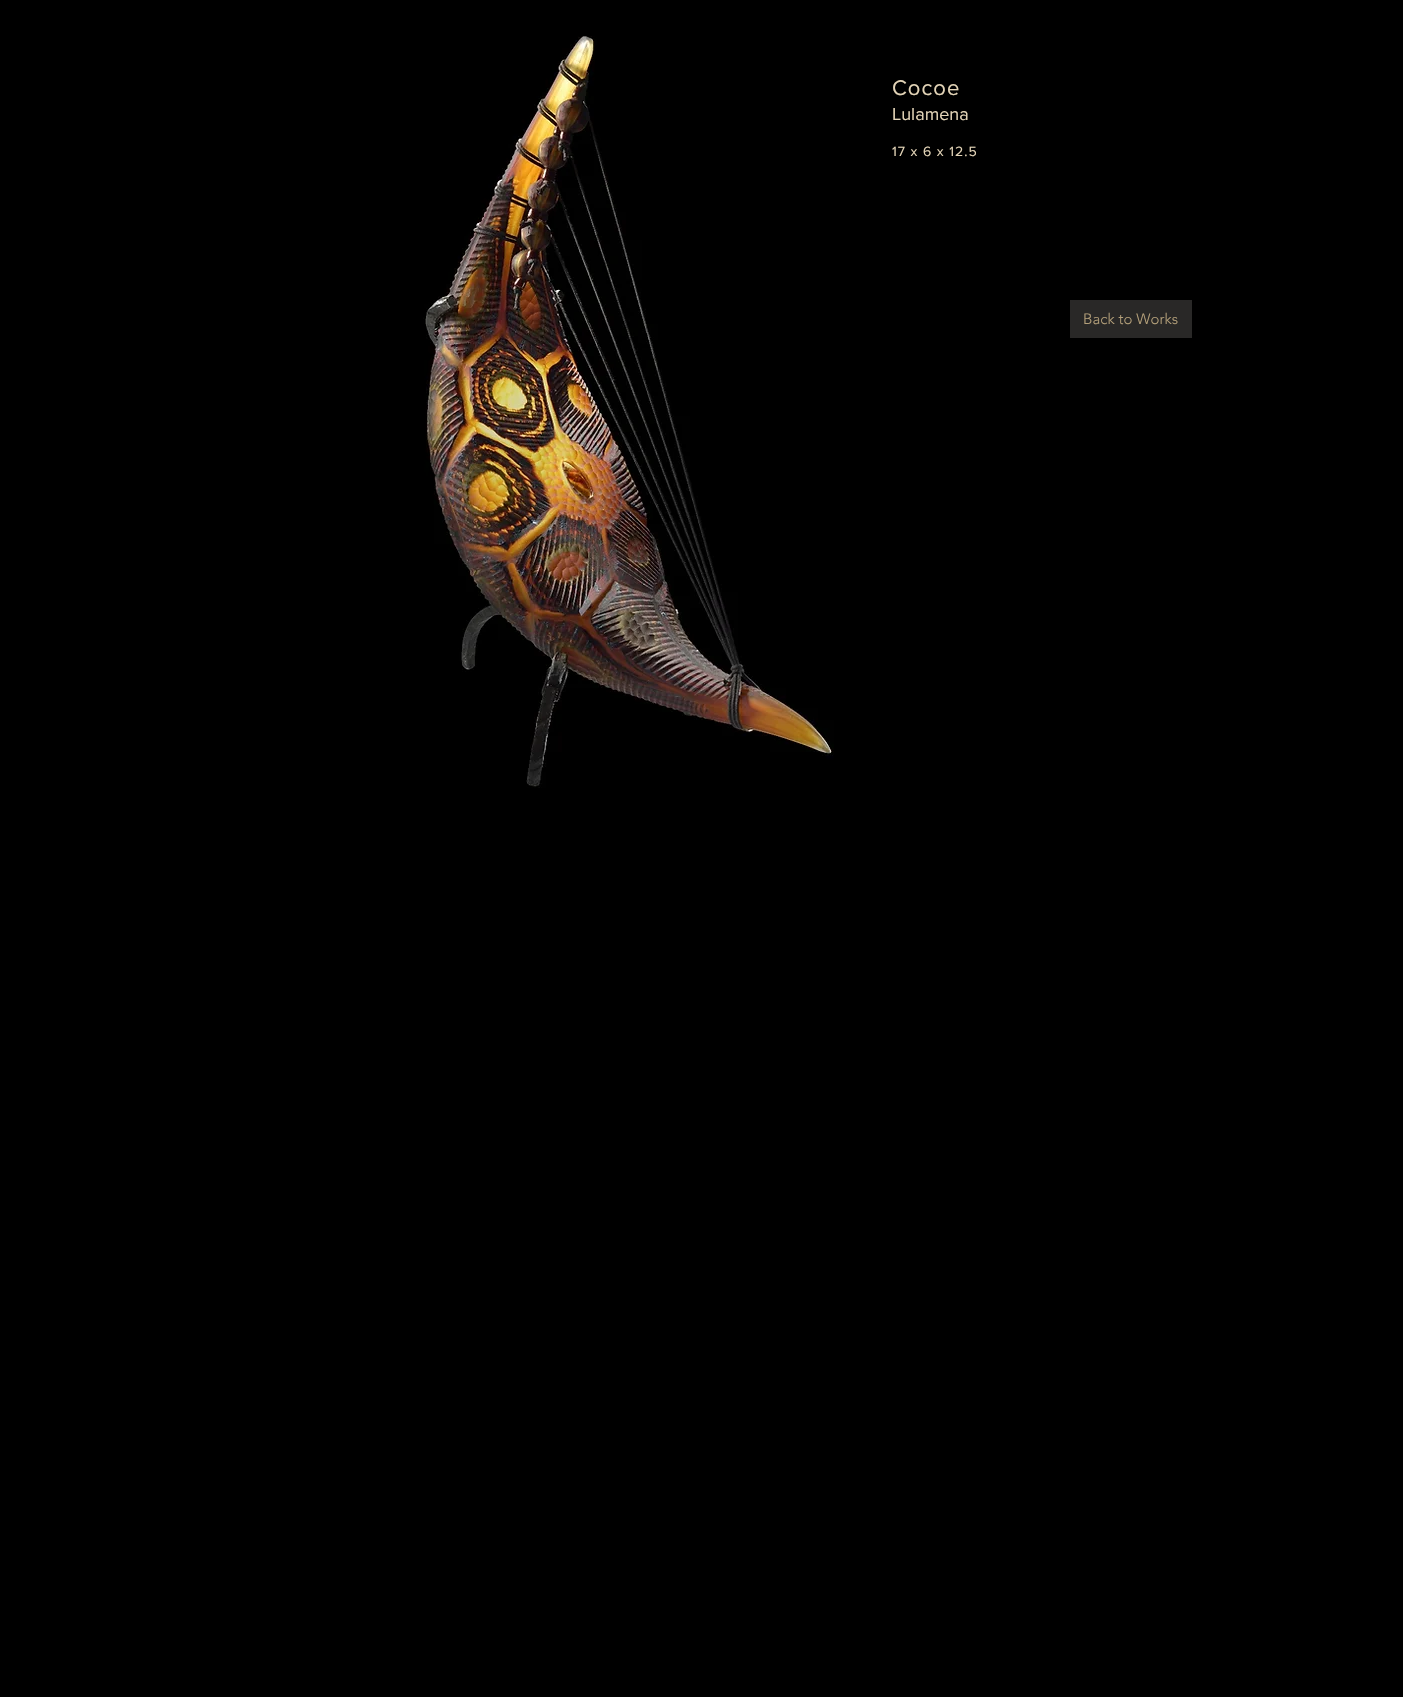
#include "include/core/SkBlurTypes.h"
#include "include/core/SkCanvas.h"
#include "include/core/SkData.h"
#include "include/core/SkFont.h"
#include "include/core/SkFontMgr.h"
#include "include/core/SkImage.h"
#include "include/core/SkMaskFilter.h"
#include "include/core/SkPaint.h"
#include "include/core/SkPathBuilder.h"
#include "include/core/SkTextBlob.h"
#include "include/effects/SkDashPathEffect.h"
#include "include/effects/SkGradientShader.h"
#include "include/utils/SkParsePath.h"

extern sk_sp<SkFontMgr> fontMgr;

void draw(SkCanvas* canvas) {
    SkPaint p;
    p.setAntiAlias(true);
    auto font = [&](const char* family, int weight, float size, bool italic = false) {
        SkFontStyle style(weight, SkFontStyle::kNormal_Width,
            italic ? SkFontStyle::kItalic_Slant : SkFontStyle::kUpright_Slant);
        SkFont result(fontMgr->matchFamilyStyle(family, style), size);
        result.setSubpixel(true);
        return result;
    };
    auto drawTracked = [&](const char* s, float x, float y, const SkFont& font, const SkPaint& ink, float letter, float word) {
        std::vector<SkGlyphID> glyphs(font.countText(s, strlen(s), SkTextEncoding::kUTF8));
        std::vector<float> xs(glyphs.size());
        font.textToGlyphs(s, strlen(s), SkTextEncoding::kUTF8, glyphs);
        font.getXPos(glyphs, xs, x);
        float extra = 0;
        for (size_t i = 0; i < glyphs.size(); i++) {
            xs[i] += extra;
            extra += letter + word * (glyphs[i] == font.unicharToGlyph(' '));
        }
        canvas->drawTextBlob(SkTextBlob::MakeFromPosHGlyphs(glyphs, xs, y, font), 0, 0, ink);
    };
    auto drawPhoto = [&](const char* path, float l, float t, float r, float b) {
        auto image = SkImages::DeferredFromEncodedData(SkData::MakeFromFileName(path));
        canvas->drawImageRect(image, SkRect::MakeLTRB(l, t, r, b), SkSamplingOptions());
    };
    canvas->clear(0xFF000000);
    drawPhoto("media/1.png", 423, 36, 834, 788);
    auto font1 = font("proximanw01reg", 400, 22);
    p.setColor(0xFFE3D4B7);
    drawTracked("Cocoe", 892, 95, font1, p, 1, 0);
    auto font2 = font("proximanw01reg", 400, 18);
    canvas->drawString("Lulamena", 892, 120, font2, p);
    auto font3 = font("proximanw01reg", 400, 14);
    drawTracked("17 x 6 x 12.5", 892, 156, font3, p, 1, 0);
    p.setColor(0xFF292827);
    canvas->drawRect(SkRect::MakeLTRB(1070, 300, 1192, 338), p);
    auto font4 = font("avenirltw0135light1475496", 300, 15);
    p.setColor(0xFFB39F79);
    canvas->drawString("Back to Works", 1083, 324, font4, p);
}
